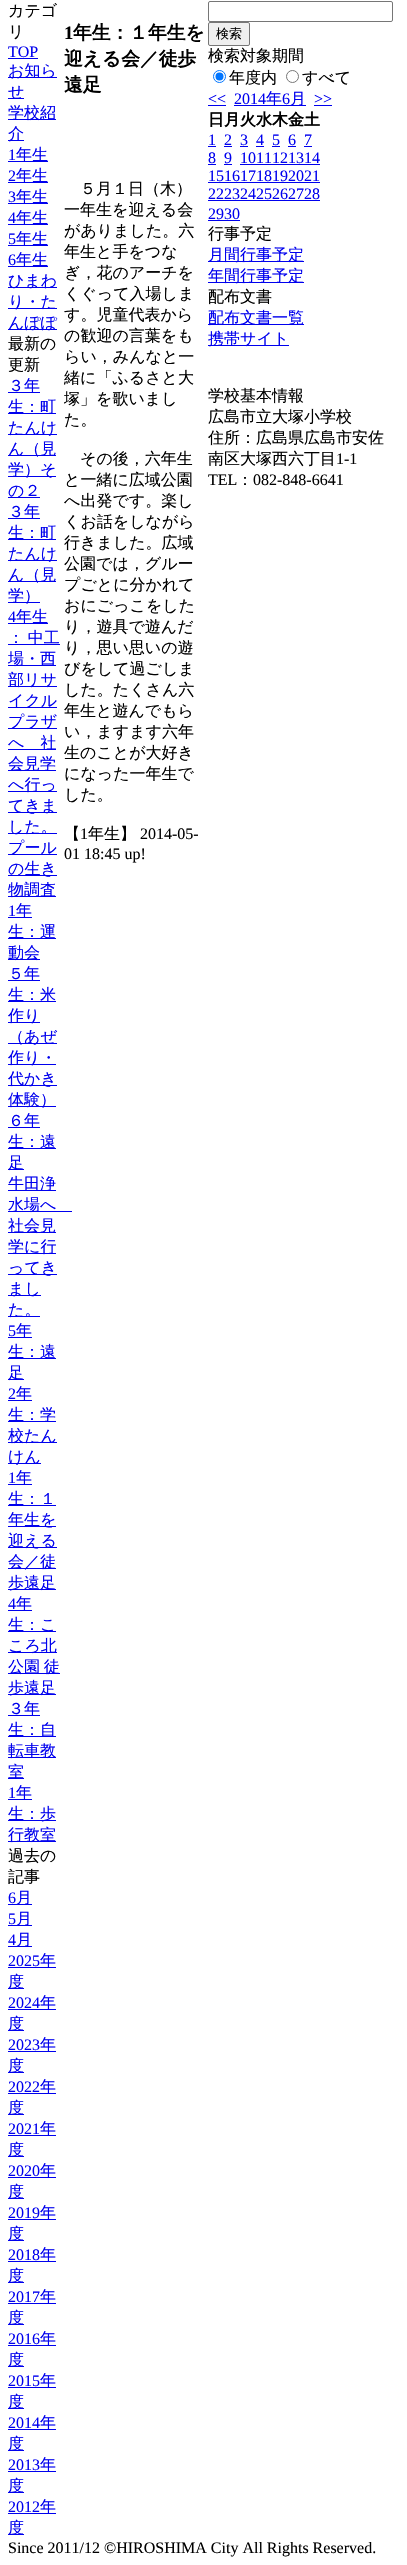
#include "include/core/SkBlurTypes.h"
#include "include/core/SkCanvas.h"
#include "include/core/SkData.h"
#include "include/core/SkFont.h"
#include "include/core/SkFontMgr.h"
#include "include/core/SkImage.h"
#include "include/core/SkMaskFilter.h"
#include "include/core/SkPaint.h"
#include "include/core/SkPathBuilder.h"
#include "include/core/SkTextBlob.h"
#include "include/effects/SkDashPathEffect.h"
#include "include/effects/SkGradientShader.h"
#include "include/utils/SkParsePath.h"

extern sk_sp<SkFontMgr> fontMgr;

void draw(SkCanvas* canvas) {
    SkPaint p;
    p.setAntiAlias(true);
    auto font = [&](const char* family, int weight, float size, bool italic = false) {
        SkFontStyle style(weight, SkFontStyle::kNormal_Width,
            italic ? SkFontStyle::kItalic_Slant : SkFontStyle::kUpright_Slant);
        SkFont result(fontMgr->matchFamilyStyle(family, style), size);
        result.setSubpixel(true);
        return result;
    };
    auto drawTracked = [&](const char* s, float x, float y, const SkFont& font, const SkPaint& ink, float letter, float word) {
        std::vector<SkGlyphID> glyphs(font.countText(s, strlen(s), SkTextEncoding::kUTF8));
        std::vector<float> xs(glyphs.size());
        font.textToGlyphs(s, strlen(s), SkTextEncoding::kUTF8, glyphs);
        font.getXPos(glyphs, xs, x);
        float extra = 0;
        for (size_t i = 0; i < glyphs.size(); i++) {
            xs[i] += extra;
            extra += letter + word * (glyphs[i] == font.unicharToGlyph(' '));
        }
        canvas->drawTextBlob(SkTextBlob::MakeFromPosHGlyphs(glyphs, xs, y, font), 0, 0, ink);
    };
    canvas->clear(0xFFFFFFFF);
    auto font1 = font("WenQuanYi Zen Hei", 500, 16);
    p.setColor(0xFF000000);
    canvas->drawString("カテゴ", 8, 16, font1, p);
    canvas->drawString("リ", 8, 37, font1, p);
    auto font2 = font("Liberation Serif", 400, 16);
    p.setColor(0xFF0000EE);
    canvas->drawString("TOP", 8, 57, font2, p);
    canvas->drawRect(SkRect::MakeLTRB(8, 58, 38, 59), p);
    canvas->drawRect(SkRect::MakeLTRB(8, 77, 57, 78), p);
    canvas->drawString("お知ら", 8, 76, font1, p);
    canvas->drawRect(SkRect::MakeLTRB(8, 98, 24, 99), p);
    canvas->drawString("せ", 8, 97, font1, p);
    canvas->drawRect(SkRect::MakeLTRB(8, 119, 56, 120), p);
    canvas->drawString("学校紹", 8, 118, font1, p);
    canvas->drawRect(SkRect::MakeLTRB(8, 140, 24, 141), p);
    canvas->drawString("介", 8, 139, font1, p);
    canvas->drawString("1", 8, 160, font2, p);
    canvas->drawRect(SkRect::MakeLTRB(8, 161, 48, 162), p);
    canvas->drawString("年生", 16, 160, font1, p);
    canvas->drawString("2", 8, 181, font2, p);
    canvas->drawRect(SkRect::MakeLTRB(8, 182, 48, 183), p);
    canvas->drawString("年生", 16, 181, font1, p);
    canvas->drawString("3", 8, 202, font2, p);
    canvas->drawRect(SkRect::MakeLTRB(8, 203, 48, 204), p);
    canvas->drawString("年生", 16, 202, font1, p);
    canvas->drawString("4", 8, 223, font2, p);
    canvas->drawRect(SkRect::MakeLTRB(8, 224, 48, 225), p);
    canvas->drawString("年生", 16, 223, font1, p);
    canvas->drawString("5", 8, 244, font2, p);
    canvas->drawRect(SkRect::MakeLTRB(8, 245, 48, 246), p);
    canvas->drawString("年生", 16, 244, font1, p);
    canvas->drawString("6", 8, 265, font2, p);
    canvas->drawRect(SkRect::MakeLTRB(8, 266, 48, 267), p);
    canvas->drawString("年生", 16, 265, font1, p);
    canvas->drawRect(SkRect::MakeLTRB(8, 287, 57, 288), p);
    canvas->drawString("ひまわ", 8, 286, font1, p);
    canvas->drawRect(SkRect::MakeLTRB(8, 308, 57, 309), p);
    canvas->drawString("り・た", 8, 307, font1, p);
    canvas->drawRect(SkRect::MakeLTRB(8, 329, 57, 330), p);
    canvas->drawString("んぽぽ", 8, 328, font1, p);
    p.setColor(0xFF000000);
    canvas->drawString("最新の", 8, 349, font1, p);
    canvas->drawString("更新", 8, 370, font1, p);
    p.setColor(0xFF0000EE);
    canvas->drawRect(SkRect::MakeLTRB(8, 392, 40, 393), p);
    canvas->drawString("３年", 8, 391, font1, p);
    canvas->drawRect(SkRect::MakeLTRB(8, 413, 56, 414), p);
    canvas->drawString("生：町", 8, 412, font1, p);
    canvas->drawRect(SkRect::MakeLTRB(8, 434, 57, 435), p);
    canvas->drawString("たんけ", 8, 433, font1, p);
    canvas->drawRect(SkRect::MakeLTRB(8, 455, 56, 456), p);
    canvas->drawString("ん（見", 8, 454, font1, p);
    canvas->drawRect(SkRect::MakeLTRB(8, 476, 56, 477), p);
    canvas->drawString("学）そ", 8, 475, font1, p);
    canvas->drawRect(SkRect::MakeLTRB(8, 497, 40, 498), p);
    canvas->drawString("の２", 8, 496, font1, p);
    canvas->drawRect(SkRect::MakeLTRB(8, 518, 40, 519), p);
    canvas->drawString("３年", 8, 517, font1, p);
    canvas->drawRect(SkRect::MakeLTRB(8, 539, 56, 540), p);
    canvas->drawString("生：町", 8, 538, font1, p);
    canvas->drawRect(SkRect::MakeLTRB(8, 560, 57, 561), p);
    canvas->drawString("たんけ", 8, 559, font1, p);
    canvas->drawRect(SkRect::MakeLTRB(8, 581, 56, 582), p);
    canvas->drawString("ん（見", 8, 580, font1, p);
    canvas->drawRect(SkRect::MakeLTRB(8, 602, 40, 603), p);
    canvas->drawString("学）", 8, 601, font1, p);
    canvas->drawString("4", 8, 622, font2, p);
    canvas->drawRect(SkRect::MakeLTRB(8, 623, 48, 624), p);
    canvas->drawString("年生", 16, 622, font1, p);
    canvas->drawRect(SkRect::MakeLTRB(8, 644, 60, 645), p);
    drawTracked("： 中工", 8, 643, font1, p, 0, -1);
    canvas->drawRect(SkRect::MakeLTRB(8, 665, 56, 666), p);
    canvas->drawString("場・西", 8, 664, font1, p);
    canvas->drawRect(SkRect::MakeLTRB(8, 686, 57, 687), p);
    canvas->drawString("部リサ", 8, 685, font1, p);
    canvas->drawRect(SkRect::MakeLTRB(8, 707, 57, 708), p);
    canvas->drawString("イクル", 8, 706, font1, p);
    canvas->drawRect(SkRect::MakeLTRB(8, 728, 57, 729), p);
    canvas->drawString("プラザ", 8, 727, font1, p);
    canvas->drawRect(SkRect::MakeLTRB(8, 749, 56, 750), p);
    canvas->drawString("へ　社", 8, 748, font1, p);
    canvas->drawRect(SkRect::MakeLTRB(8, 770, 56, 771), p);
    canvas->drawString("会見学", 8, 769, font1, p);
    canvas->drawRect(SkRect::MakeLTRB(8, 791, 57, 792), p);
    canvas->drawString("へ行っ", 8, 790, font1, p);
    canvas->drawRect(SkRect::MakeLTRB(8, 812, 57, 813), p);
    canvas->drawString("てきま", 8, 811, font1, p);
    canvas->drawRect(SkRect::MakeLTRB(8, 833, 57, 834), p);
    canvas->drawString("した。", 8, 832, font1, p);
    canvas->drawRect(SkRect::MakeLTRB(8, 854, 57, 855), p);
    canvas->drawString("プール", 8, 853, font1, p);
    canvas->drawRect(SkRect::MakeLTRB(8, 875, 57, 876), p);
    canvas->drawString("の生き", 8, 874, font1, p);
    canvas->drawRect(SkRect::MakeLTRB(8, 896, 56, 897), p);
    canvas->drawString("物調査", 8, 895, font1, p);
    canvas->drawString("1", 8, 916, font2, p);
    canvas->drawRect(SkRect::MakeLTRB(8, 917, 32, 918), p);
    canvas->drawString("年", 16, 916, font1, p);
    canvas->drawRect(SkRect::MakeLTRB(8, 938, 56, 939), p);
    canvas->drawString("生：運", 8, 937, font1, p);
    canvas->drawRect(SkRect::MakeLTRB(8, 959, 40, 960), p);
    canvas->drawString("動会", 8, 958, font1, p);
    canvas->drawRect(SkRect::MakeLTRB(8, 980, 40, 981), p);
    canvas->drawString("５年", 8, 979, font1, p);
    canvas->drawRect(SkRect::MakeLTRB(8, 1001, 56, 1002), p);
    canvas->drawString("生：米", 8, 1000, font1, p);
    canvas->drawRect(SkRect::MakeLTRB(8, 1022, 40, 1023), p);
    canvas->drawString("作り", 8, 1021, font1, p);
    canvas->drawRect(SkRect::MakeLTRB(8, 1043, 57, 1044), p);
    canvas->drawString("（あぜ", 8, 1042, font1, p);
    canvas->drawRect(SkRect::MakeLTRB(8, 1064, 56, 1065), p);
    canvas->drawString("作り・", 8, 1063, font1, p);
    canvas->drawRect(SkRect::MakeLTRB(8, 1085, 57, 1086), p);
    canvas->drawString("代かき", 8, 1084, font1, p);
    canvas->drawRect(SkRect::MakeLTRB(8, 1106, 56, 1107), p);
    canvas->drawString("体験）", 8, 1105, font1, p);
    canvas->drawRect(SkRect::MakeLTRB(8, 1127, 40, 1128), p);
    canvas->drawString("６年", 8, 1126, font1, p);
    canvas->drawRect(SkRect::MakeLTRB(8, 1148, 56, 1149), p);
    canvas->drawString("生：遠", 8, 1147, font1, p);
    canvas->drawRect(SkRect::MakeLTRB(8, 1169, 24, 1170), p);
    canvas->drawString("足", 8, 1168, font1, p);
    canvas->drawRect(SkRect::MakeLTRB(8, 1190, 56, 1191), p);
    canvas->drawString("牛田浄", 8, 1189, font1, p);
    canvas->drawRect(SkRect::MakeLTRB(8, 1211, 72, 1212), p);
    canvas->drawString("水場へ", 8, 1210, font1, p);
    canvas->drawRect(SkRect::MakeLTRB(8, 1232, 56, 1233), p);
    canvas->drawString("社会見", 8, 1231, font1, p);
    canvas->drawRect(SkRect::MakeLTRB(8, 1253, 56, 1254), p);
    canvas->drawString("学に行", 8, 1252, font1, p);
    canvas->drawRect(SkRect::MakeLTRB(8, 1274, 57, 1275), p);
    canvas->drawString("ってき", 8, 1273, font1, p);
    canvas->drawRect(SkRect::MakeLTRB(8, 1295, 41, 1296), p);
    canvas->drawString("まし", 8, 1294, font1, p);
    canvas->drawRect(SkRect::MakeLTRB(8, 1316, 40, 1317), p);
    canvas->drawString("た。", 8, 1315, font1, p);
    canvas->drawString("5", 8, 1336, font2, p);
    canvas->drawRect(SkRect::MakeLTRB(8, 1337, 32, 1338), p);
    canvas->drawString("年", 16, 1336, font1, p);
    canvas->drawRect(SkRect::MakeLTRB(8, 1358, 56, 1359), p);
    canvas->drawString("生：遠", 8, 1357, font1, p);
    canvas->drawRect(SkRect::MakeLTRB(8, 1379, 24, 1380), p);
    canvas->drawString("足", 8, 1378, font1, p);
    canvas->drawString("2", 8, 1399, font2, p);
    canvas->drawRect(SkRect::MakeLTRB(8, 1400, 32, 1401), p);
    canvas->drawString("年", 16, 1399, font1, p);
    canvas->drawRect(SkRect::MakeLTRB(8, 1421, 56, 1422), p);
    canvas->drawString("生：学", 8, 1420, font1, p);
    canvas->drawRect(SkRect::MakeLTRB(8, 1442, 57, 1443), p);
    canvas->drawString("校たん", 8, 1441, font1, p);
    canvas->drawRect(SkRect::MakeLTRB(8, 1463, 41, 1464), p);
    canvas->drawString("けん", 8, 1462, font1, p);
    canvas->drawString("1", 8, 1483, font2, p);
    canvas->drawRect(SkRect::MakeLTRB(8, 1484, 32, 1485), p);
    canvas->drawString("年", 16, 1483, font1, p);
    canvas->drawString("生：１", 8, 1504, font1, p);
    canvas->drawRect(SkRect::MakeLTRB(8, 1505, 56, 1506), p);
    canvas->drawRect(SkRect::MakeLTRB(8, 1526, 56, 1527), p);
    canvas->drawString("年生を", 8, 1525, font1, p);
    canvas->drawRect(SkRect::MakeLTRB(8, 1547, 57, 1548), p);
    canvas->drawString("迎える", 8, 1546, font1, p);
    canvas->drawRect(SkRect::MakeLTRB(8, 1568, 56, 1569), p);
    canvas->drawString("会／徒", 8, 1567, font1, p);
    canvas->drawRect(SkRect::MakeLTRB(8, 1589, 56, 1590), p);
    canvas->drawString("歩遠足", 8, 1588, font1, p);
    canvas->drawString("4", 8, 1609, font2, p);
    canvas->drawRect(SkRect::MakeLTRB(8, 1610, 32, 1611), p);
    canvas->drawString("年", 16, 1609, font1, p);
    canvas->drawRect(SkRect::MakeLTRB(8, 1631, 56, 1632), p);
    canvas->drawString("生：こ", 8, 1630, font1, p);
    canvas->drawRect(SkRect::MakeLTRB(8, 1652, 57, 1653), p);
    canvas->drawString("ころ北", 8, 1651, font1, p);
    canvas->drawRect(SkRect::MakeLTRB(8, 1673, 60, 1674), p);
    drawTracked("公園 徒", 8, 1672, font1, p, 0, -1);
    canvas->drawRect(SkRect::MakeLTRB(8, 1694, 56, 1695), p);
    canvas->drawString("歩遠足", 8, 1693, font1, p);
    canvas->drawRect(SkRect::MakeLTRB(8, 1715, 40, 1716), p);
    canvas->drawString("３年", 8, 1714, font1, p);
    canvas->drawRect(SkRect::MakeLTRB(8, 1736, 56, 1737), p);
    canvas->drawString("生：自", 8, 1735, font1, p);
    canvas->drawRect(SkRect::MakeLTRB(8, 1757, 56, 1758), p);
    canvas->drawString("転車教", 8, 1756, font1, p);
    canvas->drawRect(SkRect::MakeLTRB(8, 1778, 24, 1779), p);
    canvas->drawString("室", 8, 1777, font1, p);
    canvas->drawString("1", 8, 1798, font2, p);
    canvas->drawRect(SkRect::MakeLTRB(8, 1799, 32, 1800), p);
    canvas->drawString("年", 16, 1798, font1, p);
    canvas->drawRect(SkRect::MakeLTRB(8, 1820, 56, 1821), p);
    canvas->drawString("生：歩", 8, 1819, font1, p);
    canvas->drawRect(SkRect::MakeLTRB(8, 1841, 56, 1842), p);
    canvas->drawString("行教室", 8, 1840, font1, p);
    p.setColor(0xFF000000);
    canvas->drawString("過去の", 8, 1861, font1, p);
    canvas->drawString("記事", 8, 1882, font1, p);
    p.setColor(0xFF0000EE);
    canvas->drawString("6", 8, 1903, font2, p);
    canvas->drawRect(SkRect::MakeLTRB(8, 1904, 32, 1905), p);
    canvas->drawString("月", 16, 1903, font1, p);
    canvas->drawString("5", 8, 1924, font2, p);
    canvas->drawRect(SkRect::MakeLTRB(8, 1925, 32, 1926), p);
    canvas->drawString("月", 16, 1924, font1, p);
    canvas->drawString("4", 8, 1945, font2, p);
    canvas->drawRect(SkRect::MakeLTRB(8, 1946, 32, 1947), p);
    canvas->drawString("月", 16, 1945, font1, p);
    canvas->drawString("2025", 8, 1966, font2, p);
    canvas->drawRect(SkRect::MakeLTRB(8, 1967, 56, 1968), p);
    canvas->drawString("年", 40, 1966, font1, p);
    canvas->drawRect(SkRect::MakeLTRB(8, 1988, 24, 1989), p);
    canvas->drawString("度", 8, 1987, font1, p);
    canvas->drawString("2024", 8, 2008, font2, p);
    canvas->drawRect(SkRect::MakeLTRB(8, 2009, 56, 2010), p);
    canvas->drawString("年", 40, 2008, font1, p);
    canvas->drawRect(SkRect::MakeLTRB(8, 2030, 24, 2031), p);
    canvas->drawString("度", 8, 2029, font1, p);
    canvas->drawString("2023", 8, 2050, font2, p);
    canvas->drawRect(SkRect::MakeLTRB(8, 2051, 56, 2052), p);
    canvas->drawString("年", 40, 2050, font1, p);
    canvas->drawRect(SkRect::MakeLTRB(8, 2072, 24, 2073), p);
    canvas->drawString("度", 8, 2071, font1, p);
    canvas->drawString("2022", 8, 2092, font2, p);
    canvas->drawRect(SkRect::MakeLTRB(8, 2093, 56, 2094), p);
    canvas->drawString("年", 40, 2092, font1, p);
    canvas->drawRect(SkRect::MakeLTRB(8, 2114, 24, 2115), p);
    canvas->drawString("度", 8, 2113, font1, p);
    canvas->drawString("2021", 8, 2134, font2, p);
    canvas->drawRect(SkRect::MakeLTRB(8, 2135, 56, 2136), p);
    canvas->drawString("年", 40, 2134, font1, p);
    canvas->drawRect(SkRect::MakeLTRB(8, 2156, 24, 2157), p);
    canvas->drawString("度", 8, 2155, font1, p);
    canvas->drawString("2020", 8, 2176, font2, p);
    canvas->drawRect(SkRect::MakeLTRB(8, 2177, 56, 2178), p);
    canvas->drawString("年", 40, 2176, font1, p);
    canvas->drawRect(SkRect::MakeLTRB(8, 2198, 24, 2199), p);
    canvas->drawString("度", 8, 2197, font1, p);
    canvas->drawString("2019", 8, 2218, font2, p);
    canvas->drawRect(SkRect::MakeLTRB(8, 2219, 56, 2220), p);
    canvas->drawString("年", 40, 2218, font1, p);
    canvas->drawRect(SkRect::MakeLTRB(8, 2240, 24, 2241), p);
    canvas->drawString("度", 8, 2239, font1, p);
    canvas->drawString("2018", 8, 2260, font2, p);
    canvas->drawRect(SkRect::MakeLTRB(8, 2261, 56, 2262), p);
    canvas->drawString("年", 40, 2260, font1, p);
    canvas->drawRect(SkRect::MakeLTRB(8, 2282, 24, 2283), p);
    canvas->drawString("度", 8, 2281, font1, p);
    canvas->drawString("2017", 8, 2302, font2, p);
    canvas->drawRect(SkRect::MakeLTRB(8, 2303, 56, 2304), p);
    canvas->drawString("年", 40, 2302, font1, p);
    canvas->drawRect(SkRect::MakeLTRB(8, 2324, 24, 2325), p);
    canvas->drawString("度", 8, 2323, font1, p);
    canvas->drawString("2016", 8, 2344, font2, p);
    canvas->drawRect(SkRect::MakeLTRB(8, 2345, 56, 2346), p);
    canvas->drawString("年", 40, 2344, font1, p);
    canvas->drawRect(SkRect::MakeLTRB(8, 2366, 24, 2367), p);
    canvas->drawString("度", 8, 2365, font1, p);
    canvas->drawString("2015", 8, 2386, font2, p);
    canvas->drawRect(SkRect::MakeLTRB(8, 2387, 56, 2388), p);
    canvas->drawString("年", 40, 2386, font1, p);
    canvas->drawRect(SkRect::MakeLTRB(8, 2408, 24, 2409), p);
    canvas->drawString("度", 8, 2407, font1, p);
    canvas->drawString("2014", 8, 2428, font2, p);
    canvas->drawRect(SkRect::MakeLTRB(8, 2429, 56, 2430), p);
    canvas->drawString("年", 40, 2428, font1, p);
    canvas->drawRect(SkRect::MakeLTRB(8, 2450, 24, 2451), p);
    canvas->drawString("度", 8, 2449, font1, p);
    canvas->drawString("2013", 8, 2470, font2, p);
    canvas->drawRect(SkRect::MakeLTRB(8, 2471, 56, 2472), p);
    canvas->drawString("年", 40, 2470, font1, p);
    canvas->drawRect(SkRect::MakeLTRB(8, 2492, 24, 2493), p);
    canvas->drawString("度", 8, 2491, font1, p);
    canvas->drawString("2012", 8, 2512, font2, p);
    canvas->drawRect(SkRect::MakeLTRB(8, 2513, 56, 2514), p);
    canvas->drawString("年", 40, 2512, font1, p);
    canvas->drawRect(SkRect::MakeLTRB(8, 2534, 24, 2535), p);
    canvas->drawString("度", 8, 2533, font1, p);
    auto font3 = font("Liberation Serif", 700, 18.75f);
    p.setColor(0xFF000000);
    canvas->drawString("1", 64, 39, font3, p);
    auto font4 = font("WenQuanYi Zen Hei", 700, 18.75f);
    {
        const struct { const char* s; float x, y; } items[] = {
            {"年生：１年生を", 73, 39},
            {"迎える会／徒歩", 64, 65},
            {"遠足", 64, 91},
        };
        for (auto [s, x, y] : items) {
            canvas->drawString(s, x, y, font4, p);
        }
    }
    {
        const struct { const char* s; float x, y; } items[] = {
            {"５月１日（木）", 80, 194},
            {"一年生を迎える会", 64, 215},
            {"がありました。六", 64, 236},
            {"年生と手をつな", 64, 257},
            {"ぎ，花のアーチを", 64, 278},
            {"くぐって入場しま", 64, 299},
            {"す。児童代表から", 64, 320},
            {"の歓迎の言葉をも", 64, 341},
            {"らい，みんなと一", 64, 362},
            {"緒に「ふるさと大", 64, 383},
            {"塚」を歌いまし", 64, 404},
            {"た。", 64, 425},
            {"その後，六年生", 80, 464},
            {"と一緒に広域公園", 64, 485},
            {"へ出発です。楽し", 64, 506},
            {"くお話をしながら", 64, 527},
            {"行きました。広域", 64, 548},
            {"公園では，グルー", 64, 569},
            {"プごとに分かれて", 64, 590},
            {"おにごっこをした", 64, 611},
            {"り，遊具で遊んだ", 64, 632},
            {"り，思い思いの遊", 64, 653},
            {"びをして過ごしま", 64, 674},
            {"した。たくさん六", 64, 695},
            {"年生と遊んでもら", 64, 716},
            {"い，ますます六年", 64, 737},
            {"生のことが大好き", 64, 758},
            {"になった一年生で", 64, 779},
            {"した。", 64, 800},
            {"【", 64, 839},
        };
        for (auto [s, x, y] : items) {
            canvas->drawString(s, x, y, font1, p);
        }
    }
    canvas->drawString("1", 80, 839, font2, p);
    canvas->drawString("年生】", 88, 839, font1, p);
    canvas->drawString("2014-05-", 140, 839, font2, p);
    canvas->drawString("01 18:45 up!", 64, 859, font2, p);
    p.setStyle(SkPaint::kStroke_Style);
    p.setStrokeWidth(1);
    p.setColor(0xFF767676);
    canvas->drawRoundRect(SkRect::MakeLTRB(208.5f, 1.5f, 392.5f, 21.5f), 1.5f, 1.5f, p);
    p.setStyle(SkPaint::kFill_Style);
    p.setColor(0xFFEFEFEF);
    canvas->drawRoundRect(SkRect::MakeLTRB(208.5f, 22.5f, 249.5f, 45.5f), 1.5f, 1.5f, p);
    p.setStyle(SkPaint::kStroke_Style);
    p.setColor(0xFF767676);
    canvas->drawRoundRect(SkRect::MakeLTRB(208.5f, 22.5f, 249.5f, 45.5f), 1.5f, 1.5f, p);
    auto font5 = font("WenQuanYi Zen Hei", 500, 13);
    p.setStyle(SkPaint::kFill_Style);
    p.setColor(0xFF000000);
    canvas->drawString("検索", 216, 38, font5, p);
    canvas->drawString("検索対象期間", 208, 61, font1, p);
    p.setStyle(SkPaint::kStroke_Style);
    p.setColor(0xFF0075FF);
    canvas->drawCircle(219.5f, 76.5f, 6, p);
    p.setStyle(SkPaint::kFill_Style);
    canvas->drawCircle(219.5f, 76.5f, 4, p);
    p.setColor(0xFF000000);
    canvas->drawString("年度内", 229, 83, font1, p);
    p.setStyle(SkPaint::kStroke_Style);
    p.setColor(0xFF767676);
    canvas->drawCircle(292.5f, 76.5f, 6, p);
    p.setStyle(SkPaint::kFill_Style);
    p.setColor(0xFF000000);
    canvas->drawString("すべて", 302, 83, font1, p);
    p.setColor(0xFF0000EE);
    canvas->drawString("<<", 208, 104, font2, p);
    canvas->drawRect(SkRect::MakeLTRB(208, 105, 226, 106), p);
    canvas->drawString("2014", 234, 104, font2, p);
    canvas->drawRect(SkRect::MakeLTRB(234, 105, 306, 106), p);
    canvas->drawString("年", 266, 104, font1, p);
    canvas->drawString("6", 282, 104, font2, p);
    canvas->drawString("月", 290, 104, font1, p);
    canvas->drawString(">>", 314, 104, font2, p);
    canvas->drawRect(SkRect::MakeLTRB(314, 105, 332, 106), p);
    auto font6 = font("WenQuanYi Zen Hei", 700, 16);
    p.setColor(0xFF000000);
    canvas->drawString("日月火水木金土", 208, 125, font6, p);
    p.setColor(0xFF0000EE);
    canvas->drawString("1", 208, 145, font2, p);
    canvas->drawRect(SkRect::MakeLTRB(208, 146, 216, 147), p);
    canvas->drawString("2", 224, 145, font2, p);
    canvas->drawRect(SkRect::MakeLTRB(224, 146, 232, 147), p);
    canvas->drawString("3", 240, 145, font2, p);
    canvas->drawRect(SkRect::MakeLTRB(240, 146, 248, 147), p);
    canvas->drawString("4", 256, 145, font2, p);
    canvas->drawRect(SkRect::MakeLTRB(256, 146, 264, 147), p);
    canvas->drawString("5", 272, 145, font2, p);
    canvas->drawRect(SkRect::MakeLTRB(272, 146, 280, 147), p);
    canvas->drawString("6", 288, 145, font2, p);
    canvas->drawRect(SkRect::MakeLTRB(288, 146, 296, 147), p);
    canvas->drawString("7", 304, 145, font2, p);
    canvas->drawRect(SkRect::MakeLTRB(304, 146, 312, 147), p);
    canvas->drawString("8", 208, 163, font2, p);
    canvas->drawRect(SkRect::MakeLTRB(208, 164, 216, 165), p);
    canvas->drawString("9", 224, 163, font2, p);
    canvas->drawRect(SkRect::MakeLTRB(224, 164, 232, 165), p);
    canvas->drawString("1011121314", 240, 163, font2, p);
    canvas->drawRect(SkRect::MakeLTRB(240, 164, 320, 165), p);
    canvas->drawString("15161718192021", 208, 181, font2, p);
    canvas->drawRect(SkRect::MakeLTRB(208, 182, 320, 183), p);
    canvas->drawString("22232425262728", 208, 199, font2, p);
    canvas->drawRect(SkRect::MakeLTRB(208, 200, 320, 201), p);
    canvas->drawString("2930", 208, 219, font2, p);
    canvas->drawRect(SkRect::MakeLTRB(208, 220, 240, 221), p);
    p.setColor(0xFF000000);
    canvas->drawString("行事予定", 208, 239, font1, p);
    p.setColor(0xFF0000EE);
    canvas->drawRect(SkRect::MakeLTRB(208, 261, 304, 262), p);
    canvas->drawString("月間行事予定", 208, 260, font1, p);
    canvas->drawRect(SkRect::MakeLTRB(208, 282, 304, 283), p);
    canvas->drawString("年間行事予定", 208, 281, font1, p);
    p.setColor(0xFF000000);
    canvas->drawString("配布文書", 208, 302, font1, p);
    p.setColor(0xFF0000EE);
    canvas->drawRect(SkRect::MakeLTRB(208, 324, 304, 325), p);
    canvas->drawString("配布文書一覧", 208, 323, font1, p);
    canvas->drawRect(SkRect::MakeLTRB(208, 345, 289, 346), p);
    canvas->drawString("携帯サイト", 208, 344, font1, p);
    p.setColor(0xFF000000);
    {
        const struct { const char* s; float x, y; } items[] = {
            {"学校基本情報", 208, 401},
            {"広島市立大塚小学校", 208, 422},
            {"住所：広島県広島市安佐", 208, 443},
            {"南区大塚西六丁目", 208, 464},
        };
        for (auto [s, x, y] : items) {
            canvas->drawString(s, x, y, font1, p);
        }
    }
    canvas->drawString("1-1", 336, 464, font2, p);
    canvas->drawString("TEL", 208, 485, font2, p);
    canvas->drawString("：", 237, 485, font1, p);
    canvas->drawString("082-848-6641", 253, 485, font2, p);
    canvas->drawString("Since 2011/12 ©HIROSHIMA City All Rights Reserved.", 8, 2553, font2, p);
}
